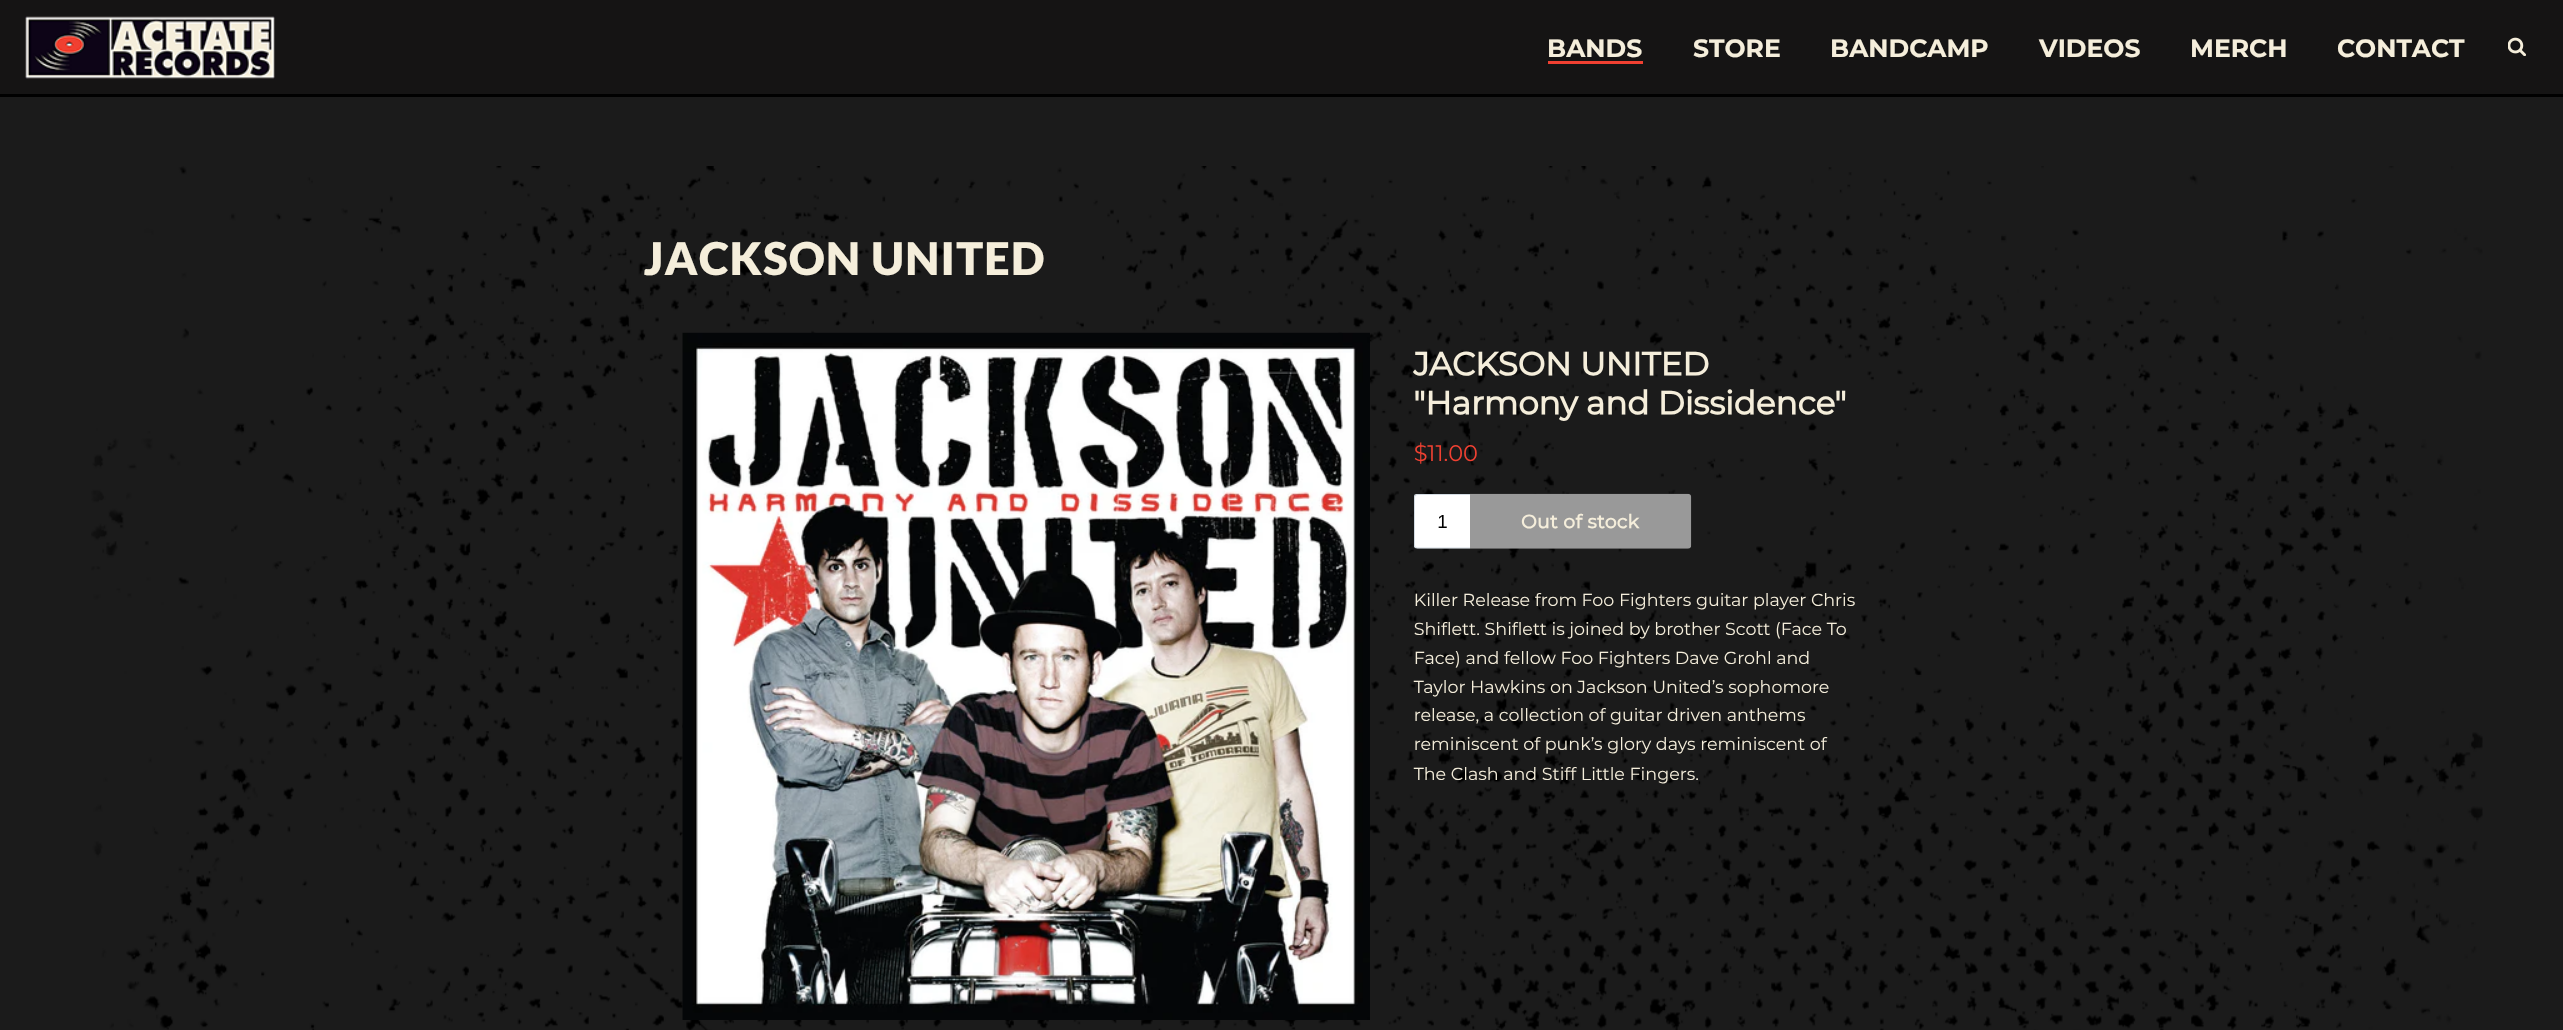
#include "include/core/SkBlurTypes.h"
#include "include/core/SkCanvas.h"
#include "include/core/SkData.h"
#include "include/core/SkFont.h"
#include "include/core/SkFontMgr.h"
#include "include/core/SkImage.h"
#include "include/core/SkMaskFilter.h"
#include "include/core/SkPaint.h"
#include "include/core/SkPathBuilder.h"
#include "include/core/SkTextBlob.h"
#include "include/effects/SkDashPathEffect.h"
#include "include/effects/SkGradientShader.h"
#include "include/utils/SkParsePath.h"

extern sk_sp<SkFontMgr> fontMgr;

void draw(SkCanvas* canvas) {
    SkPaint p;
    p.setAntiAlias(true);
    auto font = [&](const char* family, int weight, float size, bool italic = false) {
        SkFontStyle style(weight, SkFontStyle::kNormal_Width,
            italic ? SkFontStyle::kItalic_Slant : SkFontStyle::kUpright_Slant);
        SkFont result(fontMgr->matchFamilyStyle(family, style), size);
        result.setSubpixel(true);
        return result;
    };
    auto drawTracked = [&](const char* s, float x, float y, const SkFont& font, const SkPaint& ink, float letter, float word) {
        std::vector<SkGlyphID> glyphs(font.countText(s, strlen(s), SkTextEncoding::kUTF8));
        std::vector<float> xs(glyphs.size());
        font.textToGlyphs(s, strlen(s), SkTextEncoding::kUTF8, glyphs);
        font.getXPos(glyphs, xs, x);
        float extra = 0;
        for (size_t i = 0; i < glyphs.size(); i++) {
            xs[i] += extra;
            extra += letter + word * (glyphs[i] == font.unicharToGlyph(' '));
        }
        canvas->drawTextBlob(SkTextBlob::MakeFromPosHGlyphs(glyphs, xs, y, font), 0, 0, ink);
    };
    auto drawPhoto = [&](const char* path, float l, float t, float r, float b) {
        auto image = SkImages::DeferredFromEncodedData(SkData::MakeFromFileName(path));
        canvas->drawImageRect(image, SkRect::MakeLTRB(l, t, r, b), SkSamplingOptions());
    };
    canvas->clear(0xFF1B1B1B);
    p.setColor(0xFF000000);
    canvas->drawRect(SkRect::MakeLTRB(0, 94, 2563, 97), p);
    p.setColor(0xFF151414);
    canvas->drawRect(SkRect::MakeLTRB(0, 0, 2563, 94), p);
    drawPhoto("media/1.png", 25, 16, 275, 79);
    auto font1 = font("Montserrat", 700, 25);
    p.setColor(0xFFF5EEDB);
    canvas->drawString("BANDS", 1547, 57, font1, p);
    p.setColor(0xFFF04031);
    canvas->drawRect(SkRect::MakeLTRB(1548, 61, 1643, 64), p);
    p.setColor(0xFFF5EEDB);
    {
        const struct { const char* s; float x, y; } items[] = {
            {"STORE", 1693, 57},
            {"BANDCAMP", 1830, 57},
            {"VIDEOS", 2039, 57},
            {"MERCH", 2190, 57},
            {"CONTACT", 2337, 57},
        };
        for (auto [s, x, y] : items) {
            canvas->drawString(s, x, y, font1, p);
        }
    }
    drawPhoto("media/2.png", 2508, 37, 2526, 56);
    drawPhoto("media/3.png", 91, 166, 2483, 1030);
    auto font2 = font("Lato", 900, 45);
    drawTracked("JACKSON UNITED", 644, 275, font2, p, 1.25f, 0);
    drawPhoto("media/4.png", 682, 332, 1855, 1020);
}
